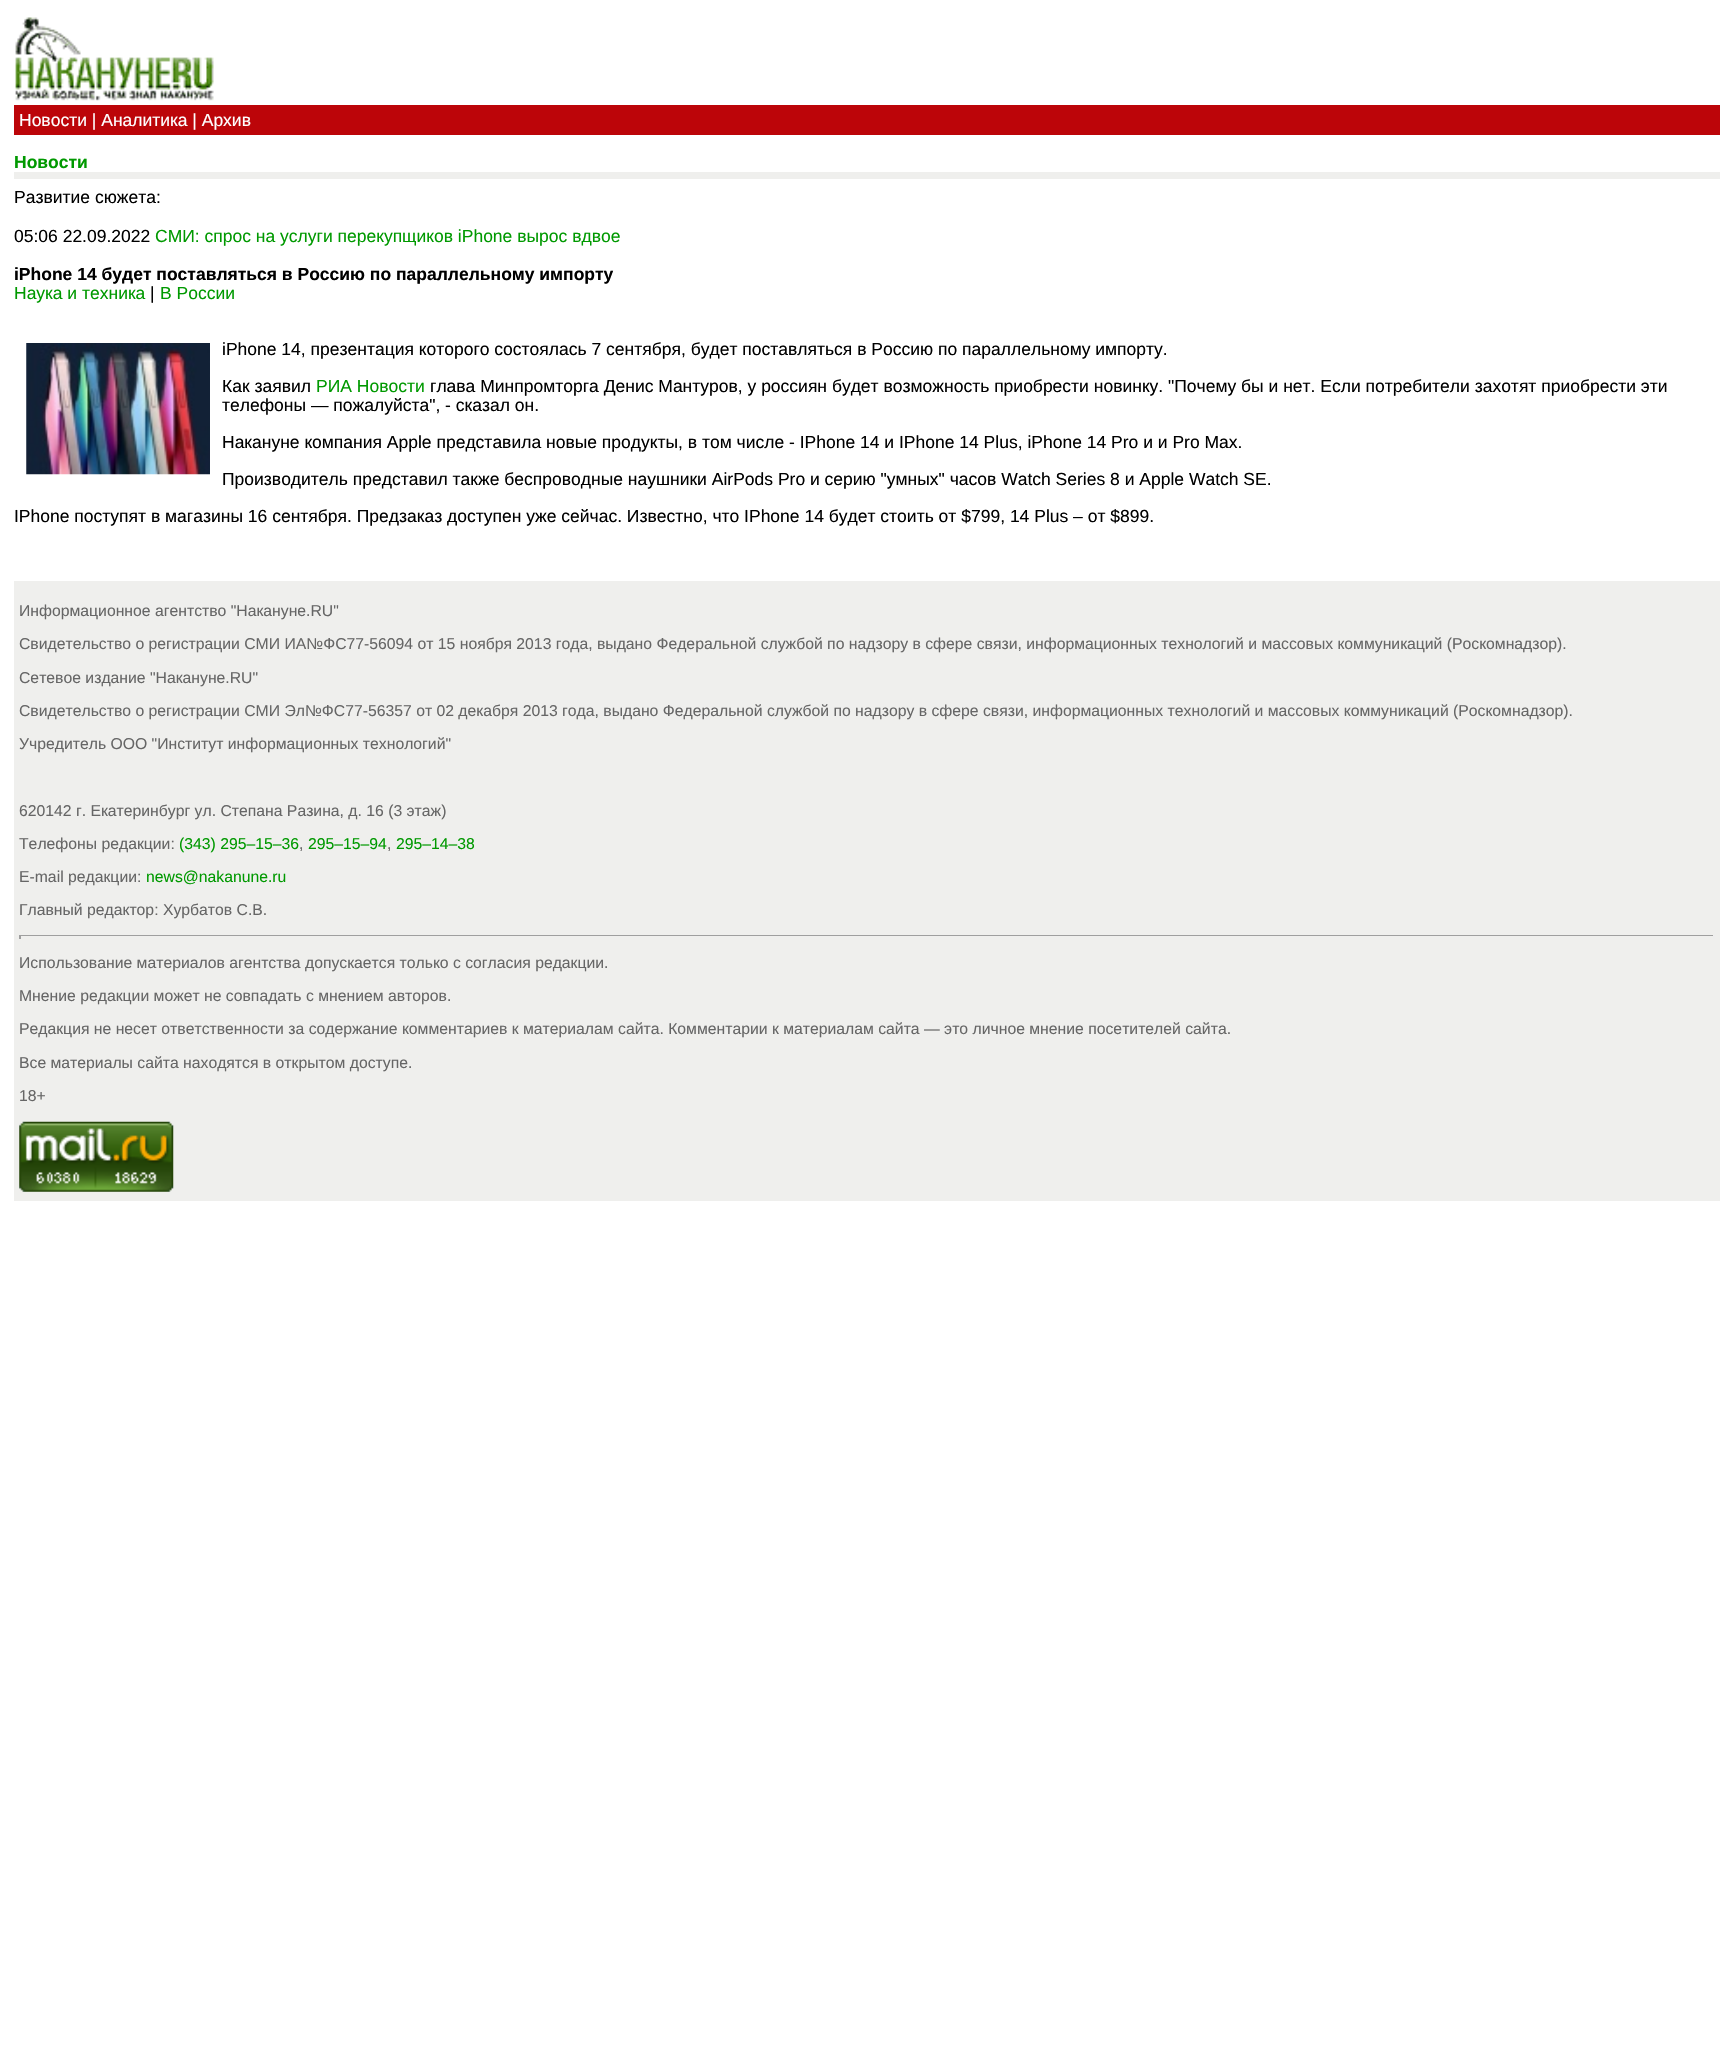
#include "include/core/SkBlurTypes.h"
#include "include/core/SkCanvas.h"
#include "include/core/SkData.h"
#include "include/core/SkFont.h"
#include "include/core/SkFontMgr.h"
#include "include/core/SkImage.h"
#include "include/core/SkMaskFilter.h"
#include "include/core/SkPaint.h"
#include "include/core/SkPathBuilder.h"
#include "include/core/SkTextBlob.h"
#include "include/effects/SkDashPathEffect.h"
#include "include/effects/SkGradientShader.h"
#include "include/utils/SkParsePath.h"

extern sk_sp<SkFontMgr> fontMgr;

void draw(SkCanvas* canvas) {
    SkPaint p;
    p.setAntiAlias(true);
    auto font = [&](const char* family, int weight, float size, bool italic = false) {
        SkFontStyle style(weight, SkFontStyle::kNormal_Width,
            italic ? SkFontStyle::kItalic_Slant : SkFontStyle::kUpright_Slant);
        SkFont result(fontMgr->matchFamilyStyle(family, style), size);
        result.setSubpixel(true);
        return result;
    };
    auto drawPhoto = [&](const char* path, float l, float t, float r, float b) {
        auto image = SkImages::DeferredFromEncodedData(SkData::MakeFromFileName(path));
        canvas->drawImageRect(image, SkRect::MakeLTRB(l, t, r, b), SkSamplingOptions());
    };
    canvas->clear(0xFFFFFFFF);
    drawPhoto("media/1.png", 15, 17, 214, 101);
    p.setColor(0xFFBC0509);
    canvas->drawRect(SkRect::MakeLTRB(14, 105, 1720, 135), p);
    auto font1 = font("Liberation Sans", 400, 17.5f);
    p.setColor(0xFFFFFFFF);
    canvas->drawString("Новости | Аналитика | Архив", 19, 126, font1, p);
    p.setColor(0xFFEFEFED);
    canvas->drawRect(SkRect::MakeLTRB(14, 172, 1720, 179), p);
    auto font2 = font("Liberation Sans", 700, 17.5f);
    p.setColor(0xFF009900);
    canvas->drawString("Новости", 14, 168, font2, p);
    p.setColor(0xFF000000);
    canvas->drawString("Развитие сюжета:", 14, 203, font1, p);
    canvas->drawString("05:06 22.09.2022", 14, 242, font1, p);
    p.setColor(0xFF009900);
    canvas->drawString("СМИ: спрос на услуги перекупщиков iPhone вырос вдвое", 155, 242, font1, p);
    p.setColor(0xFF000000);
    canvas->drawString("iPhone 14 будет поставляться в Россию по параллельному импорту", 14, 280, font2, p);
    p.setColor(0xFF009900);
    canvas->drawString("Наука и техника", 14, 299, font1, p);
    p.setColor(0xFF000000);
    canvas->drawString("|", 150, 299, font1, p);
    p.setColor(0xFF009900);
    canvas->drawString("В России", 160, 299, font1, p);
    drawPhoto("media/2.png", 26, 343, 210, 475);
    p.setColor(0xFF000000);
    canvas->drawString("iPhone 14, презентация которого состоялась 7 сентября, будет поставляться в Россию по параллельному импорту.", 222, 355, font1, p);
    canvas->drawString("Как заявил", 222, 392, font1, p);
    p.setColor(0xFF009900);
    canvas->drawString("РИА Новости", 316, 392, font1, p);
    p.setColor(0xFF000000);
    {
        const struct { const char* s; float x, y; } items[] = {
            {"глава Минпромторга Денис Мантуров, у россиян будет возможность приобрести новинку. \"Почему бы и нет. Если потребители захотят приобрести эти", 430, 392},
            {"телефоны — пожалуйста\", - сказал он.", 222, 411},
            {"Накануне компания Apple представила новые продукты, в том числе - IPhone 14 и IPhone 14 Plus, iPhone 14 Pro и и Pro Max.", 222, 448},
            {"Производитель представил также беспроводные наушники AirPods Pro и серию \"умных\" часов Watch Series 8 и Apple Watch SE.", 222, 485},
            {"IPhone поступят в магазины 16 сентября. Предзаказ доступен уже сейчас. Известно, что IPhone 14 будет стоить от $799, 14 Plus – от $899.", 14, 522},
        };
        for (auto [s, x, y] : items) {
            canvas->drawString(s, x, y, font1, p);
        }
    }
    p.setColor(0xFFEFEFED);
    canvas->drawRect(SkRect::MakeLTRB(14, 581, 1720, 1201), p);
    auto font3 = font("Liberation Sans", 400, 15.75f);
    p.setColor(0xFF666666);
    {
        const struct { const char* s; float x, y; } items[] = {
            {"Информационное агентство \"Накануне.RU\"", 19, 616},
            {"Свидетельство о регистрации СМИ ИА№ФС77-56094 от 15 ноября 2013 года, выдано Федеральной службой по надзору в сфере связи, информационных технологий и массовых коммуникаций (Роскомнадзор).", 19, 649},
            {"Сетевое издание \"Накануне.RU\"", 19, 683},
            {"Свидетельство о регистрации СМИ Эл№ФС77-56357 от 02 декабря 2013 года, выдано Федеральной службой по надзору в сфере связи, информационных технологий и массовых коммуникаций (Роскомнадзор).", 19, 716},
            {"Учредитель ООО \"Институт информационных технологий\"", 19, 749},
            {"620142 г. Екатеринбург ул. Степана Разина, д. 16 (3 этаж)", 19, 816},
            {"Телефоны редакции:", 19, 849},
        };
        for (auto [s, x, y] : items) {
            canvas->drawString(s, x, y, font3, p);
        }
    }
    p.setColor(0xFF009900);
    canvas->drawString("(343) 295–15–36", 179, 849, font3, p);
    p.setColor(0xFF666666);
    canvas->drawString(",", 299, 849, font3, p);
    p.setColor(0xFF009900);
    canvas->drawString("295–15–94", 308, 849, font3, p);
    p.setColor(0xFF666666);
    canvas->drawString(",", 387, 849, font3, p);
    p.setColor(0xFF009900);
    canvas->drawString("295–14–38", 396, 849, font3, p);
    p.setColor(0xFF666666);
    canvas->drawString("E-mail редакции:", 19, 882, font3, p);
    p.setColor(0xFF009900);
    canvas->drawString("news@nakanune.ru", 146, 882, font3, p);
    p.setColor(0xFF666666);
    canvas->drawString("Главный редактор: Хурбатов С.В.", 19, 915, font3, p);
    {
        const struct { float l, t, r, b; SkColor color; } items[] = {
            {19, 935, 1715, 936, 0xFF9F9F9F},
            {1713, 935, 1715, 939, 0xFFEEEEEE},
            {19, 935, 21, 939, 0xFF9F9F9F},
        };
        for (auto [l, t, r, b, color] : items) {
            p.setColor(color);
            canvas->drawRect(SkRect::MakeLTRB(l, t, r, b), p);
        }
    }
    p.setColor(0xFF666666);
    {
        const struct { const char* s; float x, y; } items[] = {
            {"Использование материалов агентства допускается только с согласия редакции.", 19, 968},
            {"Мнение редакции может не совпадать с мнением авторов.", 19, 1001},
            {"Редакция не несет ответственности за содержание комментариев к материалам сайта. Комментарии к материалам сайта — это личное мнение посетителей сайта.", 19, 1034},
            {"Все материалы сайта находятся в открытом доступе.", 19, 1068},
            {"18+", 19, 1101},
        };
        for (auto [s, x, y] : items) {
            canvas->drawString(s, x, y, font3, p);
        }
    }
    drawPhoto("media/3.png", 19, 1121, 174, 1192);
}
